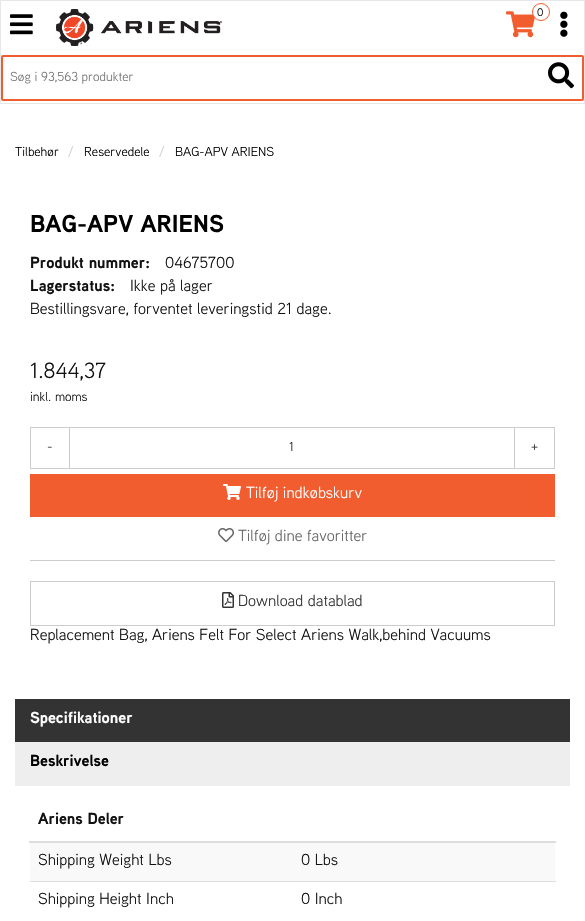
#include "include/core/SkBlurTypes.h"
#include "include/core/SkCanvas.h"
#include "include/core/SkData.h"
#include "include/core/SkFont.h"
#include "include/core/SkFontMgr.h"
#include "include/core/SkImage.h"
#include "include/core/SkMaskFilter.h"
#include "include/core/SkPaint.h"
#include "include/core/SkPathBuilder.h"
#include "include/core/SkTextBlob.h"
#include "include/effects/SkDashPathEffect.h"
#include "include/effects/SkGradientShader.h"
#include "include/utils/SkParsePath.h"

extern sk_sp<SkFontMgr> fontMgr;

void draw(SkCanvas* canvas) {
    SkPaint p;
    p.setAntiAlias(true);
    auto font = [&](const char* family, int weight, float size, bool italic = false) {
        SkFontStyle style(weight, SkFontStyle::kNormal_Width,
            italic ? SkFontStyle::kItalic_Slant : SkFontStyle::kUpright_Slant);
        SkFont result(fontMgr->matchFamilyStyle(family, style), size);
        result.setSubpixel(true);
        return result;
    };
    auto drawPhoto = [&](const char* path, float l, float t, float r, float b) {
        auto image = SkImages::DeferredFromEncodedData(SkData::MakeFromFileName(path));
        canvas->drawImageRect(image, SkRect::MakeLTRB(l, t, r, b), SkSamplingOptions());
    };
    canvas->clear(0xFFFFFFFF);
    p.setStyle(SkPaint::kStroke_Style);
    p.setStrokeWidth(1);
    p.setColor(0xFFE7E7E7);
    canvas->drawRect(SkRect::MakeLTRB(0.5f, 0.5f, 584.5f, 103.5f), p);
    drawPhoto("media/1.png", 10, 14, 33, 35);
    drawPhoto("media/2.png", 56, 9, 222, 46);
    drawPhoto("media/3.png", 506, 11, 535, 38);
    p.setStyle(SkPaint::kFill_Style);
    p.setColor(0xFFFFFFFF);
    canvas->drawCircle(541, 12, 8.5f, p);
    p.setStyle(SkPaint::kStroke_Style);
    p.setColor(0xFFF15D2F);
    canvas->drawCircle(541, 12, 8.5f, p);
    auto font1 = font("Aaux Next", 400, 11);
    p.setStyle(SkPaint::kFill_Style);
    p.setColor(0xFF000000);
    canvas->drawString("0", 537, 16, font1, p);
    drawPhoto("media/4.png", 560, 11, 568, 37);
    p.setStyle(SkPaint::kStroke_Style);
    p.setStrokeWidth(2);
    p.setColor(0xFFF15D2F);
    canvas->drawRoundRect(SkRect::MakeLTRB(2, 56, 583, 100), 1, 1, p);
    auto font2 = font("Aaux Next", 400, 13);
    p.setStyle(SkPaint::kFill_Style);
    p.setColor(0xFF757575);
    canvas->drawString("Søg i 93,563 produkter", 10, 81, font2, p);
    drawPhoto("media/5.png", 548, 62, 574, 89);
    p.setColor(0xFF000000);
    canvas->drawString("Tilbehør", 15, 156, font2, p);
    p.setColor(0xFFCCCCCC);
    canvas->drawString("/", 68, 156, font2, p);
    p.setColor(0xFF000000);
    canvas->drawString("Reservedele", 84, 156, font2, p);
    p.setColor(0xFFCCCCCC);
    canvas->drawString("/", 159, 156, font2, p);
    p.setColor(0xFF000000);
    canvas->drawString("BAG-APV ARIENS", 175, 156, font2, p);
    auto font3 = font("Aaux Next", 700, 24.5f);
    canvas->drawString("BAG-APV ARIENS", 30, 232, font3, p);
    auto font4 = font("Aaux Next", 700, 16);
    p.setColor(0xFF111111);
    canvas->drawString("Produkt nummer:", 30, 268, font4, p);
    auto font5 = font("Aaux Next", 400, 16);
    canvas->drawString("04675700", 165, 268, font5, p);
    canvas->drawString("Lagerstatus:", 30, 291, font4, p);
    canvas->drawString("Ikke på lager", 130, 291, font5, p);
    canvas->drawString("Bestillingsvare, forventet leveringstid 21 dage.", 30, 314, font5, p);
    auto font6 = font("Aaux Next", 400, 22);
    canvas->drawString("1.844,37", 30, 378, font6, p);
    canvas->drawString("inkl. moms", 30, 401, font2, p);
    p.setStyle(SkPaint::kStroke_Style);
    p.setStrokeWidth(1);
    p.setColor(0xFFCCCCCC);
    canvas->drawRect(SkRect::MakeLTRB(30.5f, 427.5f, 69.5f, 468.5f), p);
    auto font7 = font("Aaux Next", 400, 14);
    p.setStyle(SkPaint::kFill_Style);
    p.setColor(0xFF333333);
    canvas->drawString("-", 47, 451, font7, p);
    p.setStyle(SkPaint::kStroke_Style);
    p.setColor(0xFFCCCCCC);
    canvas->drawRect(SkRect::MakeLTRB(69.5f, 427.5f, 514.5f, 468.5f), p);
    p.setStyle(SkPaint::kFill_Style);
    p.setColor(0xFF292929);
    canvas->drawString("1", 289, 451, font2, p);
    p.setStyle(SkPaint::kStroke_Style);
    p.setColor(0xFFCCCCCC);
    canvas->drawRect(SkRect::MakeLTRB(514.5f, 427.5f, 554.5f, 468.5f), p);
    p.setStyle(SkPaint::kFill_Style);
    p.setColor(0xFF333333);
    canvas->drawString("+", 531, 451, font7, p);
    p.setColor(0xFFF15D2F);
    canvas->drawRect(SkRect::MakeLTRB(30, 474, 555, 517), p);
    drawPhoto("media/6.png", 223, 484, 241, 500);
    p.setColor(0xFFFFFFFF);
    canvas->drawString("Tilføj indkøbskurv", 246, 498, font5, p);
    p.setColor(0xFFCCCCCC);
    canvas->drawRect(SkRect::MakeLTRB(30, 560, 555, 561), p);
    drawPhoto("media/7.png", 218, 528, 234, 542);
    p.setColor(0xFF666666);
    canvas->drawString("Tilføj dine favoritter", 238, 541, font5, p);
    p.setStyle(SkPaint::kStroke_Style);
    p.setColor(0xFFCCCCCC);
    canvas->drawRect(SkRect::MakeLTRB(30.5f, 581.5f, 554.5f, 625.5f), p);
    drawPhoto("media/8.png", 222, 592, 234, 608);
    p.setStyle(SkPaint::kFill_Style);
    p.setColor(0xFF333333);
    canvas->drawString("Download datablad", 238, 606, font5, p);
    p.setColor(0xFF111111);
    canvas->drawString("Replacement Bag, Ariens Felt For Select Ariens Walk,behind Vacuums", 30, 640, font5, p);
    p.setColor(0xFF333333);
    canvas->drawRect(SkRect::MakeLTRB(15, 699, 570, 742), p);
    p.setColor(0xFFFFFFFF);
    canvas->drawString("Specifikationer", 30, 723, font4, p);
    p.setColor(0xFFEEEEEE);
    canvas->drawRect(SkRect::MakeLTRB(15, 742, 570, 786), p);
    p.setColor(0xFF000000);
    canvas->drawString("Beskrivelse", 30, 766, font4, p);
    p.setColor(0xFFDDDDDD);
    canvas->drawRect(SkRect::MakeLTRB(29, 841, 556, 843), p);
    p.setColor(0xFF111111);
    canvas->drawString("Ariens Deler", 38, 824, font4, p);
    p.setColor(0xFFF9F9F9);
    canvas->drawRect(SkRect::MakeLTRB(30, 843, 555, 881), p);
    p.setColor(0xFF111111);
    {
        const struct { const char* s; float x, y; } items[] = {
            {"Shipping Weight Lbs", 38, 865},
            {"0 Lbs", 301, 865},
            {"Shipping Height Inch", 38, 904},
        };
        for (auto [s, x, y] : items) {
            canvas->drawString(s, x, y, font5, p);
        }
    }
    p.setColor(0xFFDDDDDD);
    canvas->drawRect(SkRect::MakeLTRB(30, 881, 556, 882), p);
    p.setColor(0xFF111111);
    canvas->drawString("0 Inch", 301, 904, font5, p);
}
